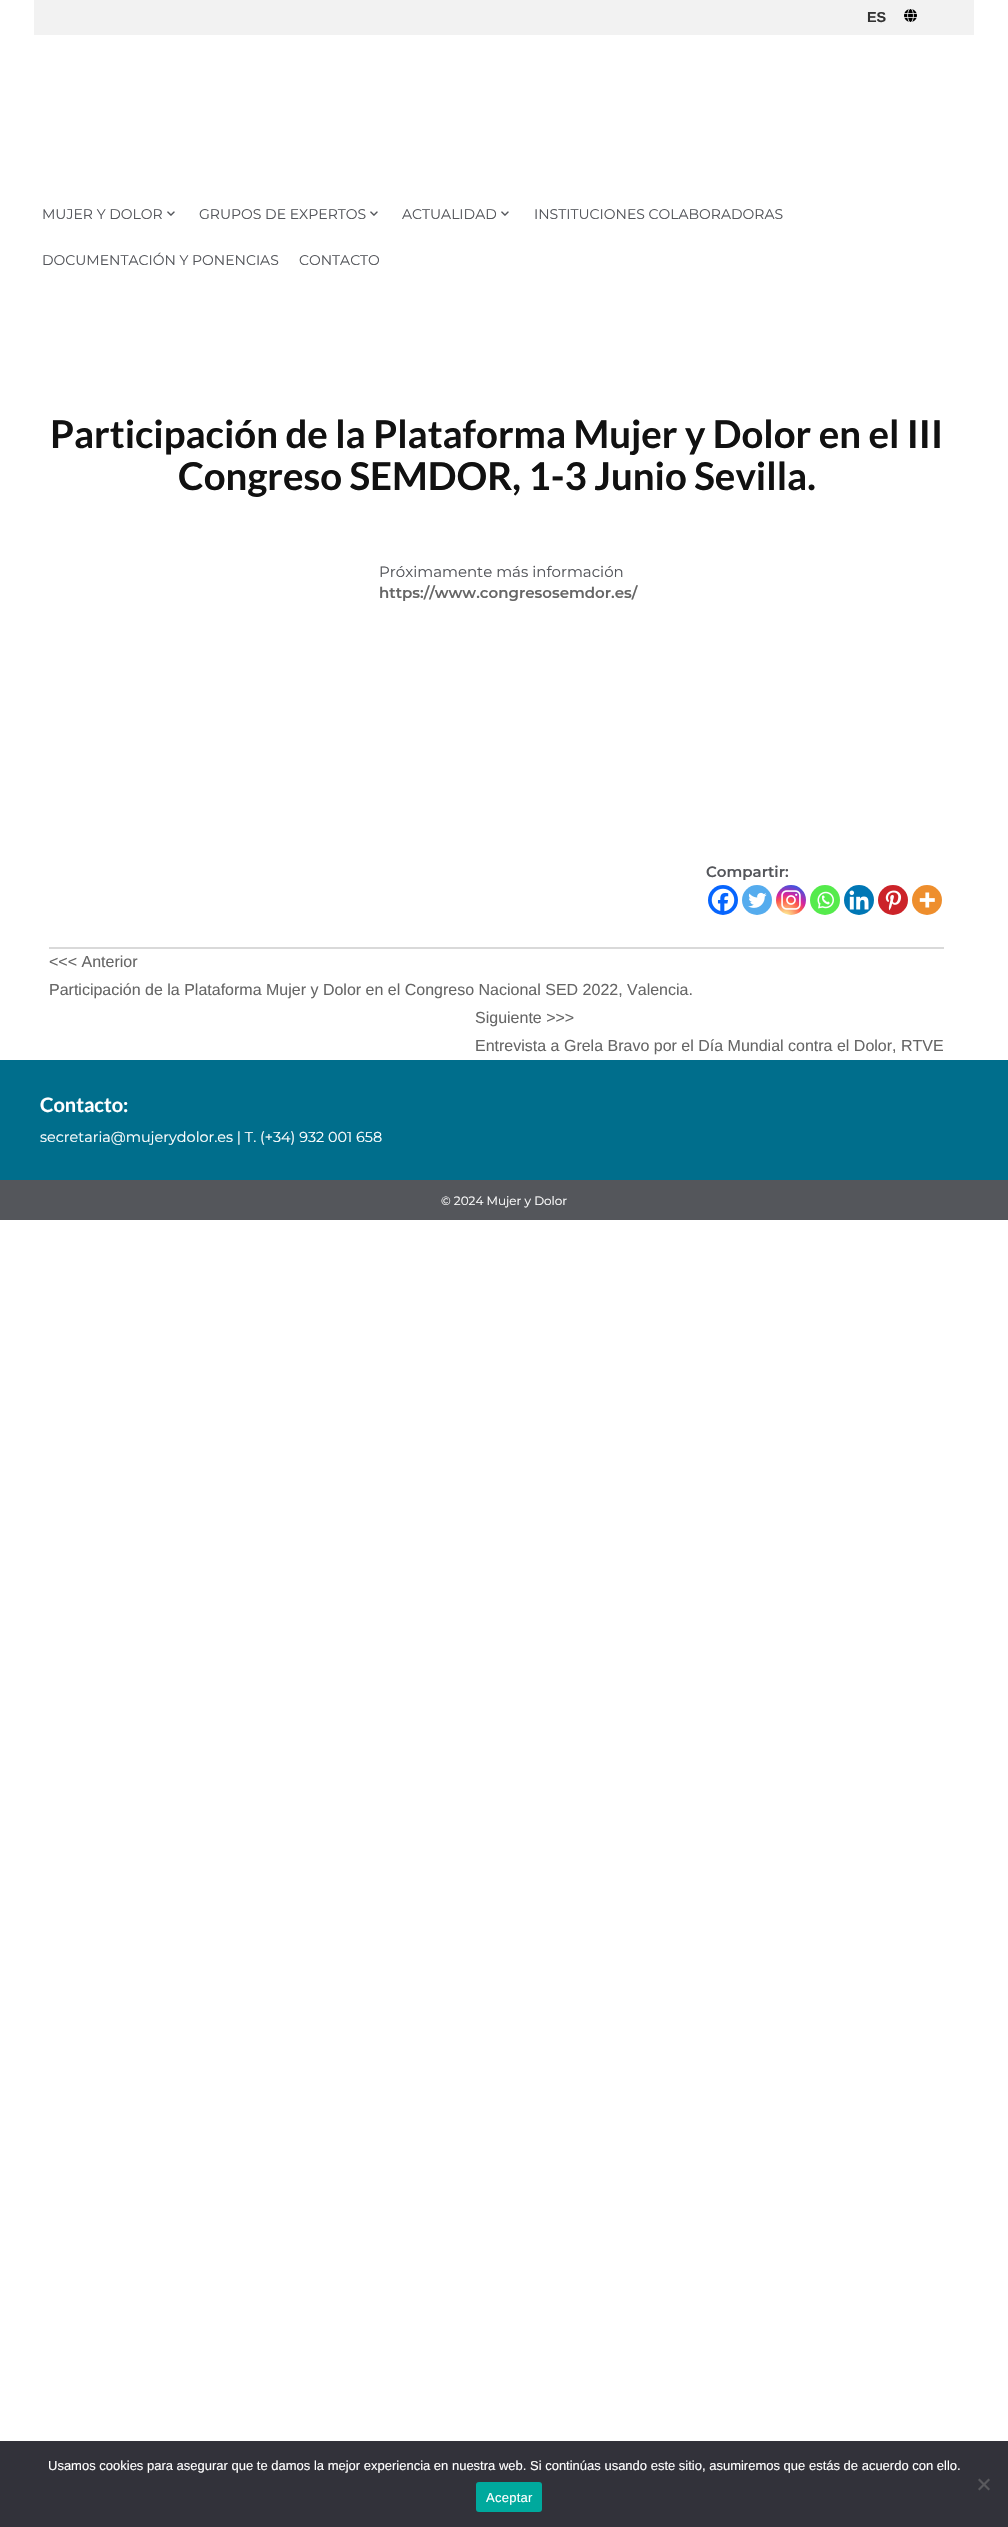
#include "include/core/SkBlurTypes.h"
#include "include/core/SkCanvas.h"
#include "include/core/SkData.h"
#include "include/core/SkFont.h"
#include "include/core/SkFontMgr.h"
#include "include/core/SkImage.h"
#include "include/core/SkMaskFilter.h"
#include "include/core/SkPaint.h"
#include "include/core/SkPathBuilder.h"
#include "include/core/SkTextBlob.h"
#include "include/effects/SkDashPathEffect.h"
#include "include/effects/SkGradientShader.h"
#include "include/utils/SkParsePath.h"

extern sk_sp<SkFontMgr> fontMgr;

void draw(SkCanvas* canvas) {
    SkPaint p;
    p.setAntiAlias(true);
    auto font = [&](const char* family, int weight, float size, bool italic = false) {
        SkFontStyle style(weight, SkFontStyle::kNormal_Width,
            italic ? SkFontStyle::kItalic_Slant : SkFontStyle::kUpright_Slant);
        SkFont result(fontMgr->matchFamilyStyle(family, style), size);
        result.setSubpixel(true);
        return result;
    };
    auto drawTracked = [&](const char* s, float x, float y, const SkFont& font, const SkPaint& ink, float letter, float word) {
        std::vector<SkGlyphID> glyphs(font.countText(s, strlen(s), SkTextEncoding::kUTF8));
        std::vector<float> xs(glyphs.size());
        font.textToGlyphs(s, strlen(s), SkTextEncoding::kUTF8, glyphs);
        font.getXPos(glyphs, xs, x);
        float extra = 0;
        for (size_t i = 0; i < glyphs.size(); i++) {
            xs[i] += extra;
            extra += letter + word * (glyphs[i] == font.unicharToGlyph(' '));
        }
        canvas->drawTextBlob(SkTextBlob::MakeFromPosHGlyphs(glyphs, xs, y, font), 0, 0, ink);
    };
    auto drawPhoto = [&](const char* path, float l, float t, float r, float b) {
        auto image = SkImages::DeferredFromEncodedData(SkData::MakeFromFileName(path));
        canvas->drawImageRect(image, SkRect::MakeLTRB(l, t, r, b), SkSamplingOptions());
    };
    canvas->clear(0xFFFFFFFF);
    p.setColor(0xFFF2F2F2);
    canvas->drawRect(SkRect::MakeLTRB(34, 0, 974, 35), p);
    auto font1 = font("Liberation Sans", 700, 14.4f);
    p.setColor(0xFF333333);
    canvas->drawString("ES", 867, 22, font1, p);
    drawPhoto("media/1.png", 904, 9, 917, 22);
    auto font2 = font("Montserrat", 400, 14);
    p.setColor(0xFF54565B);
    canvas->drawString("MUJER Y DOLOR", 42, 219, font2, p);
    drawPhoto("media/2.png", 167, 211, 175, 216);
    canvas->drawString("GRUPOS DE EXPERTOS", 199, 219, font2, p);
    drawPhoto("media/2.png", 370, 211, 378, 216);
    canvas->drawString("ACTUALIDAD", 402, 219, font2, p);
    drawPhoto("media/2.png", 501, 211, 509, 216);
    {
        const struct { const char* s; float x, y; } items[] = {
            {"INSTITUCIONES COLABORADORAS", 534, 219},
            {"DOCUMENTACIÓN Y PONENCIAS", 42, 265},
            {"CONTACTO", 299, 265},
        };
        for (auto [s, x, y] : items) {
            canvas->drawString(s, x, y, font2, p);
        }
    }
    auto font3 = font("Lato", 700, 38.4f);
    p.setColor(0xFF111111);
    canvas->drawString("Participación de la Plataforma Mujer y Dolor en el III", 50, 448, font3, p);
    canvas->drawString("Congreso SEMDOR, 1-3 Junio Sevilla.", 178, 490, font3, p);
    auto font4 = font("Montserrat", 400, 15);
    p.setColor(0xFF54565B);
    canvas->drawString("Próximamente más información", 379, 577, font4, p);
    auto font5 = font("Montserrat", 600, 15);
    p.setColor(0xFF666666);
    canvas->drawString("https://www.congresosemdor.es/", 379, 598, font5, p);
    p.setColor(0xFF54565B);
    canvas->drawString("Compartir:", 706, 877, font5, p);
    p.setColor(0xFF0765FE);
    canvas->drawCircle(723, 900, 15, p);
    drawPhoto("media/3.png", 711, 888, 735, 912);
    p.setColor(0xFF55ACEE);
    canvas->drawCircle(757, 900, 15, p);
    drawPhoto("media/4.png", 748, 892, 767, 908);
    {
        const SkColor colors[] = {0xFFFDF497, 0xFFFDF497, 0xFFFD5949, 0xFFD6249F, 0xFF285AEB};
        const float stops[] = {0, 0.05f, 0.45f, 0.6f, 0.9f};
        p.setShader(SkGradientShader::MakeRadial({785, 917}, 38, colors, stops, 5, SkTileMode::kClamp));
        p.setAlpha(255);
    }
    canvas->drawCircle(791, 900, 15, p);
    drawPhoto("media/5.png", 781, 890, 801, 910);
    p.setShader(nullptr);
    p.setColor(0xFF55EB4C);
    canvas->drawCircle(825, 900, 15, p);
    drawPhoto("media/6.png", 817, 891, 834, 909);
    p.setColor(0xFF0077B5);
    canvas->drawCircle(859, 900, 15, p);
    drawPhoto("media/7.png", 849, 890, 869, 910);
    p.setColor(0xFFCC2329);
    canvas->drawCircle(893, 900, 15, p);
    drawPhoto("media/8.png", 885, 890, 902, 911);
    p.setColor(0xFFEE8E2D);
    canvas->drawCircle(927, 900, 15, p);
    drawPhoto("media/9.png", 919, 892, 935, 908);
    p.setColor(0xFFD9D9D9);
    canvas->drawRect(SkRect::MakeLTRB(49, 947, 944, 949), p);
    auto font6 = font("Liberation Sans", 400, 16);
    p.setColor(0xFF666666);
    {
        const struct { const char* s; float x, y; } items[] = {
            {"<<< Anterior", 49, 967},
            {"Participación de la Plataforma Mujer y Dolor en el Congreso Nacional SED 2022, Valencia.", 49, 995},
            {"Siguiente >>>", 475, 1023},
            {"Entrevista a Grela Bravo por el Día Mundial contra el Dolor, RTVE", 475, 1051},
        };
        for (auto [s, x, y] : items) {
            canvas->drawString(s, x, y, font6, p);
        }
    }
    p.setColor(0xFF006E8C);
    canvas->drawRect(SkRect::MakeLTRB(0, 1060, 1008, 1180), p);
    auto font7 = font("Lato", 700, 20);
    p.setColor(0xFFFFFFFF);
    canvas->drawString("Contacto:", 40, 1112, font7, p);
    auto font8 = font("Montserrat", 400, 14.4f);
    canvas->drawString("secretaria@mujerydolor.es | T. (+34) 932 001 658", 40, 1142, font8, p);
    p.setColor(0xFF54565B);
    canvas->drawRect(SkRect::MakeLTRB(0, 1180, 1008, 1220), p);
    auto font9 = font("Montserrat", 400, 12);
    p.setColor(0xFFFFFFFF);
    canvas->drawString("© 2024 Mujer y Dolor", 441, 1205, font9, p);
    p.setColor(0xFF32323A);
    canvas->drawRect(SkRect::MakeLTRB(0, 2441, 1008, 2527), p);
    auto font10 = font("Liberation Sans", 400, 13);
    p.setColor(0xFFFFFFFF);
    canvas->drawString("Usamos cookies para asegurar que te damos la mejor experiencia en nuestra web. Si continúas usando este sitio, asumiremos que estás de acuerdo con ello.", 48, 2470, font10, p);
    p.setColor(0xFF59595D);
    canvas->drawPath(SkPathBuilder().moveTo(988.5f, 2478.5f).lineTo(990, 2480).lineTo(979.5f, 2490.5f).lineTo(978, 2489).close().detach(), p);
    canvas->drawPath(SkPathBuilder().moveTo(978, 2480).lineTo(979.5f, 2478.5f).lineTo(990, 2489).lineTo(988.5f, 2490.5f).close().detach(), p);
    p.setColor(0xFF00A99D);
    canvas->drawRoundRect(SkRect::MakeLTRB(476, 2482, 542, 2512), 3, 3, p);
    p.setColor(0xFFFFFFFF);
    drawTracked("Aceptar", 486, 2502, font10, p, 0.25f, 0);
}
